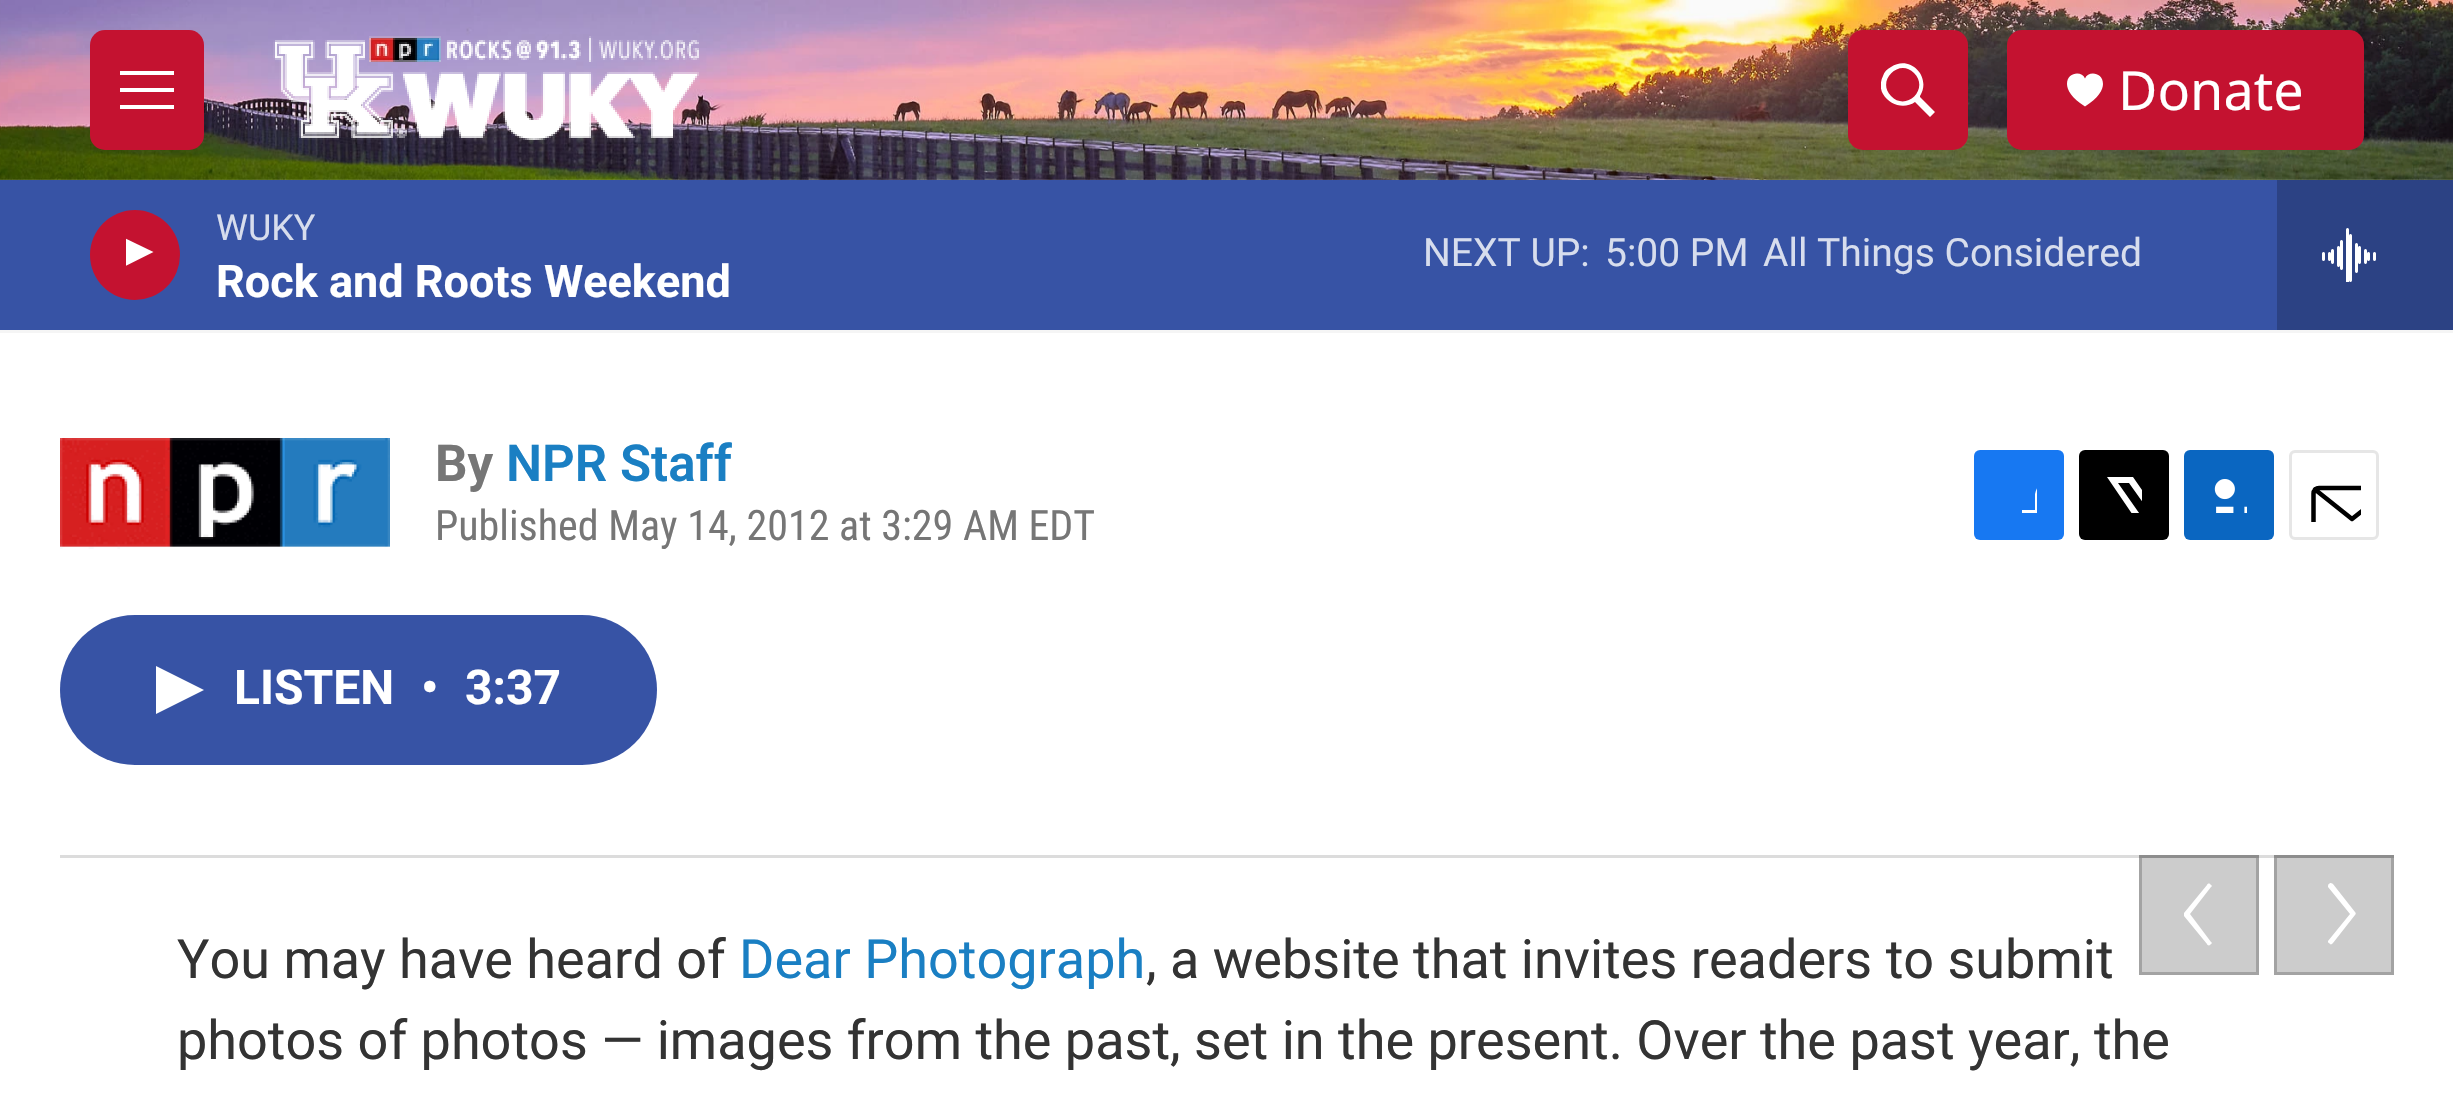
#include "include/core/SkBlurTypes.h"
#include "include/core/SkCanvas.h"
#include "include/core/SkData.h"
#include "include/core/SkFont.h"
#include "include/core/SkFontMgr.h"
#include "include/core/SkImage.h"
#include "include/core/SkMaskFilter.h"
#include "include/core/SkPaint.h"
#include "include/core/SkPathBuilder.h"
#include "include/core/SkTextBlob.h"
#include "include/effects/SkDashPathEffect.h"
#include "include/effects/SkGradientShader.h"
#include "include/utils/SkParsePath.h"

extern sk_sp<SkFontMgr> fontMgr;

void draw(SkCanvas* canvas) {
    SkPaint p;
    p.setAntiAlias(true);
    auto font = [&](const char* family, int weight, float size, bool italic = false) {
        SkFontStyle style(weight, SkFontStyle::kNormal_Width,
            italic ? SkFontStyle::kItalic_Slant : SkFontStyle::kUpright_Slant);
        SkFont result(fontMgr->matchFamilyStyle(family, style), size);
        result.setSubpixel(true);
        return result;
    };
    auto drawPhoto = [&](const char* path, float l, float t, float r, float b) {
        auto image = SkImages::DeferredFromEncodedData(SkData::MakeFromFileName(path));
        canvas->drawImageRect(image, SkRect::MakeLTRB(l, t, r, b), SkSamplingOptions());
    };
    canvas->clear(0xFFFFFFFF);
    {
        const struct { float l, t, r, b; SkColor color; } items[] = {
            {2274, 858, 2394, 975, 0xFFCCCCCC},
            {2139, 858, 2259, 975, 0xFFCCCCCC},
            {0, 330, 2453, 333, 0xFFF5F5F5},
        };
        for (auto [l, t, r, b, color] : items) {
            p.setColor(color);
            canvas->drawRect(SkRect::MakeLTRB(l, t, r, b), p);
        }
    }
    drawPhoto("media/1.png", 0, 0, 2453, 180);
    p.setColor(0xFFC41230);
    canvas->drawRoundRect(SkRect::MakeLTRB(90, 30, 204, 150), 15, 15, p);
    p.setColor(0xFFFFFFFF);
    canvas->drawPath(SkPathBuilder(SkPathFillType::kEvenOdd).moveTo(120, 92).lineTo(120, 88).lineTo(174, 88).lineTo(174, 92).close().moveTo(120, 75).lineTo(120, 71).lineTo(174, 71).lineTo(174, 75).close().moveTo(120, 109).lineTo(120, 105).lineTo(174, 105).lineTo(174, 109).close().detach(), p);
    drawPhoto("media/2.png", 273, 36, 699, 140);
    p.setColor(0xFFC41230);
    canvas->drawRoundRect(SkRect::MakeLTRB(1848, 30, 1968, 150), 15, 15, p);
    canvas->save();
    canvas->clipRect(SkRect::MakeLTRB(1881, 63, 1935, 117));
    p.setColor(0xFFFFFFFF);
    canvas->drawPath(SkPathBuilder(SkPathFillType::kEvenOdd).moveTo(1920, 96).lineTo(1920, 97).lineTo(1935, 112).lineTo(1930, 117).lineTo(1915, 102).cubicTo(1905, 109, 1890, 106, 1883, 94).cubicTo(1880, 89, 1880, 82, 1883, 76).cubicTo(1884, 72, 1887, 69, 1891, 67).cubicTo(1910, 54, 1932, 77, 1920, 96).close().moveTo(1914, 73).cubicTo(1899, 58, 1876, 81, 1891, 96).cubicTo(1906, 112, 1930, 89, 1914, 73).close().detach(), p);
    canvas->restore();
    p.setColor(0xFFC41230);
    canvas->drawRoundRect(SkRect::MakeLTRB(2007, 30, 2364, 150), 15, 15, p);
    p.setColor(0xFFFFFFFF);
    canvas->drawPath(SkPathBuilder().moveTo(2085, 78.5f).cubicTo(2082, 70.5f, 2067, 72, 2067, 84).cubicTo(2067, 90, 2071.5f, 98, 2085, 106.5f).cubicTo(2098.5f, 98, 2103, 90, 2103, 84).cubicTo(2103, 72, 2088, 70.5f, 2085, 78.5f).close().detach(), p);
    auto font1 = font("Noto Sans", 400, 54);
    canvas->drawString("Donate", 2118, 110, font1, p);
    p.setColor(0xFF3753A5);
    canvas->drawRect(SkRect::MakeLTRB(0, 180, 2277, 330), p);
    p.setColor(0xFFC41230);
    canvas->drawCircle(135, 255, 45, p);
    canvas->save();
    canvas->clipRect(SkRect::MakeLTRB(126, 234, 161, 279));
    p.setColor(0xFFFFFFFF);
    canvas->drawPath(SkPathBuilder().moveTo(124.5f, 238).lineTo(153.5f, 252).lineTo(124.5f, 266.5f).close().detach(), p);
    canvas->restore();
    auto font2 = font("Roboto", 400, 36);
    p.setColor(0xFFD7DDED);
    canvas->drawString("WUKY", 216, 240, font2, p);
    auto font3 = font("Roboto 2", 700, 45);
    p.setColor(0xFFFFFFFF);
    canvas->drawString("Rock and Roots Weekend", 216, 297, font3, p);
    auto font4 = font("Roboto", 400, 39);
    p.setColor(0xFFD7DDED);
    {
        const struct { const char* s; float x, y; } items[] = {
            {"NEXT UP:", 1423, 266},
            {"5:00 PM", 1605, 266},
            {"All Things Considered", 1763, 266},
        };
        for (auto [s, x, y] : items) {
            canvas->drawString(s, x, y, font4, p);
        }
    }
    p.setColor(0xFF2C4284);
    canvas->drawRect(SkRect::MakeLTRB(2277, 180, 2453, 330), p);
    drawPhoto("media/3.png", 2322, 228, 2376, 282);
    drawPhoto("media/4.png", 60, 438, 390, 549);
    auto font5 = font("Roboto", 700, 51);
    p.setColor(0xFF767676);
    canvas->drawString("By", 435, 481, font5, p);
    auto font6 = font("Roboto", 600, 51);
    p.setColor(0xFF1A7FC3);
    canvas->drawString("NPR Staff", 506, 481, font6, p);
    auto font7 = font("Roboto Condensed", 400, 42);
    p.setColor(0xFF767676);
    canvas->drawString("Published May 14, 2012 at 3:29 AM EDT", 435, 540, font7, p);
    p.setColor(0xFF1778F2);
    canvas->drawRoundRect(SkRect::MakeLTRB(1974, 450, 2064, 540), 6, 6, p);
    canvas->save();
    canvas->clipRect(SkRect::MakeLTRB(2001, 477, 2037, 513));
    p.setColor(0xFFFFFFFF);
    canvas->drawPath(SkPathBuilder().moveTo(2051, 540).lineTo(2035, 540).lineTo(2035, 525).lineTo(2022, 525).lineTo(2022, 510).lineTo(2035, 510).lineTo(2035, 494).cubicTo(2038, 479, 2052, 477, 2064, 479).lineTo(2064, 492).cubicTo(2048, 492, 2051, 497, 2051, 510).lineTo(2064, 510).lineTo(2064, 518).lineTo(2063, 525).lineTo(2051, 525).close().detach(), p);
    canvas->restore();
    p.setColor(0xFF000000);
    canvas->drawRoundRect(SkRect::MakeLTRB(2079, 450, 2169, 540), 6, 6, p);
    canvas->save();
    canvas->clipRect(SkRect::MakeLTRB(2106, 477, 2142, 513));
    p.setColor(0xFFFFFFFF);
    canvas->drawPath(SkPathBuilder().moveTo(2159, 515).lineTo(2169, 529).cubicTo(2169, 532, 2170, 535, 2168, 538).lineTo(2129, 483).lineTo(2118, 483).lineTo(2158, 540).lineTo(2150, 540).lineTo(2145, 532).lineTo(2138, 540).lineTo(2130, 540).lineTo(2141, 527).lineTo(2107, 477).lineTo(2133, 477).lineTo(2156, 510).lineTo(2169, 495).lineTo(2169, 503).close().detach(), p);
    canvas->restore();
    p.setColor(0xFF0A66C1);
    canvas->drawRoundRect(SkRect::MakeLTRB(2184, 450, 2274, 540), 6, 6, p);
    drawPhoto("media/5.png", 2214, 479, 2247, 513);
    p.setStyle(SkPaint::kStroke_Style);
    p.setStrokeWidth(3);
    p.setColor(0xFFE6E6E6);
    canvas->drawRoundRect(SkRect::MakeLTRB(2290.5f, 451.5f, 2377.5f, 538.5f), 4.5f, 4.5f, p);
    canvas->save();
    canvas->clipRect(SkRect::MakeLTRB(2307, 468, 2361, 522));
    p.setStrokeWidth(4.5f);
    p.setStrokeCap(SkPaint::kRound_Cap);
    p.setStrokeJoin(SkPaint::kRound_Join);
    p.setColor(0xFF000000);
    canvas->drawPath(SkPathBuilder().moveTo(2390.5f, 534).cubicTo(2390.5f, 537, 2388, 539.5f, 2385, 539.5f).lineTo(2319, 539.5f).cubicTo(2316, 539.5f, 2313.5f, 537, 2313.5f, 534).lineTo(2313.5f, 493.5f).cubicTo(2313.5f, 490.5f, 2316, 488, 2319, 488).lineTo(2385, 488).cubicTo(2388, 488, 2390.5f, 490.5f, 2390.5f, 493.5f).close().moveTo(2389, 489.5f).lineTo(2352, 519).lineTo(2315, 489.5f).detach(), p);
    canvas->restore();
    p.setStyle(SkPaint::kFill_Style);
    p.setColor(0xFF3753A5);
    canvas->drawRoundRect(SkRect::MakeLTRB(60, 615, 657, 765), 75, 75, p);
    p.setColor(0xFFFFFFFF);
    canvas->drawPath(SkPathBuilder().moveTo(156, 666).lineTo(204, 690).lineTo(156, 714).close().detach(), p);
    auto font8 = font("Roboto 2", 700, 48);
    {
        const struct { const char* s; float x, y; } items[] = {
            {"LISTEN", 234, 704},
            {"•", 421, 704},
            {"3:37", 465, 704},
        };
        for (auto [s, x, y] : items) {
            canvas->drawString(s, x, y, font8, p);
        }
    }
    {
        const struct { float l, t, r, b; SkColor color; } items[] = {
            {60, 855, 2274, 858, 0xFFDCDCDC},
            {2274, 855, 2394, 858, 0xFFB0B0B0},
            {2139, 855, 2259, 858, 0xFFB0B0B0},
        };
        for (auto [l, t, r, b, color] : items) {
            p.setColor(color);
            canvas->drawRect(SkRect::MakeLTRB(l, t, r, b), p);
        }
    }
    p.setStyle(SkPaint::kStroke_Style);
    p.setStrokeWidth(3);
    p.setStrokeCap(SkPaint::kButt_Cap);
    p.setStrokeJoin(SkPaint::kMiter_Join);
    p.setColor(0x33000000);
    canvas->drawRect(SkRect::MakeLTRB(2140.5f, 856.5f, 2257.5f, 973.5f), p);
    p.setStyle(SkPaint::kFill_Style);
    p.setColor(0xFFFFFFFF);
    canvas->drawPath(SkPathBuilder().moveTo(2190, 914).lineTo(2211, 942).cubicTo(2212, 942, 2212, 944, 2211, 944).lineTo(2210, 945).cubicTo(2209, 946, 2207, 945, 2207, 944).lineTo(2184, 916).cubicTo(2184, 915, 2184, 914, 2184, 913).lineTo(2207, 885).cubicTo(2207, 884, 2209, 883, 2210, 884).lineTo(2211, 885).cubicTo(2212, 885, 2212, 887, 2211, 887).close().detach(), p);
    p.setStyle(SkPaint::kStroke_Style);
    p.setColor(0x33000000);
    canvas->drawRect(SkRect::MakeLTRB(2275.5f, 856.5f, 2392.5f, 973.5f), p);
    p.setStyle(SkPaint::kFill_Style);
    p.setColor(0xFFFFFFFF);
    canvas->drawPath(SkPathBuilder().moveTo(2350, 914).lineTo(2328, 887).cubicTo(2328, 886, 2328, 884, 2329, 884).lineTo(2330, 883).cubicTo(2331, 883, 2332, 883, 2333, 884).lineTo(2355, 912).cubicTo(2356, 913, 2356, 914, 2355, 915).lineTo(2333, 943).cubicTo(2332, 944, 2331, 945, 2330, 944).lineTo(2329, 943).cubicTo(2328, 943, 2328, 942, 2328, 941).close().detach(), p);
    auto font9 = font("Roboto", 400, 54);
    p.setColor(0xFF333333);
    canvas->drawString("You may have heard of", 177, 978, font9, p);
    p.setColor(0xFF1A7FC3);
    canvas->drawString("Dear Photograph", 739, 978, font9, p);
    p.setColor(0xFF333333);
    canvas->drawString(", a website that invites readers to submit", 1146, 978, font9, p);
    canvas->drawString("photos of photos — images from the past, set in the present. Over the past year, the", 177, 1059, font9, p);
}
